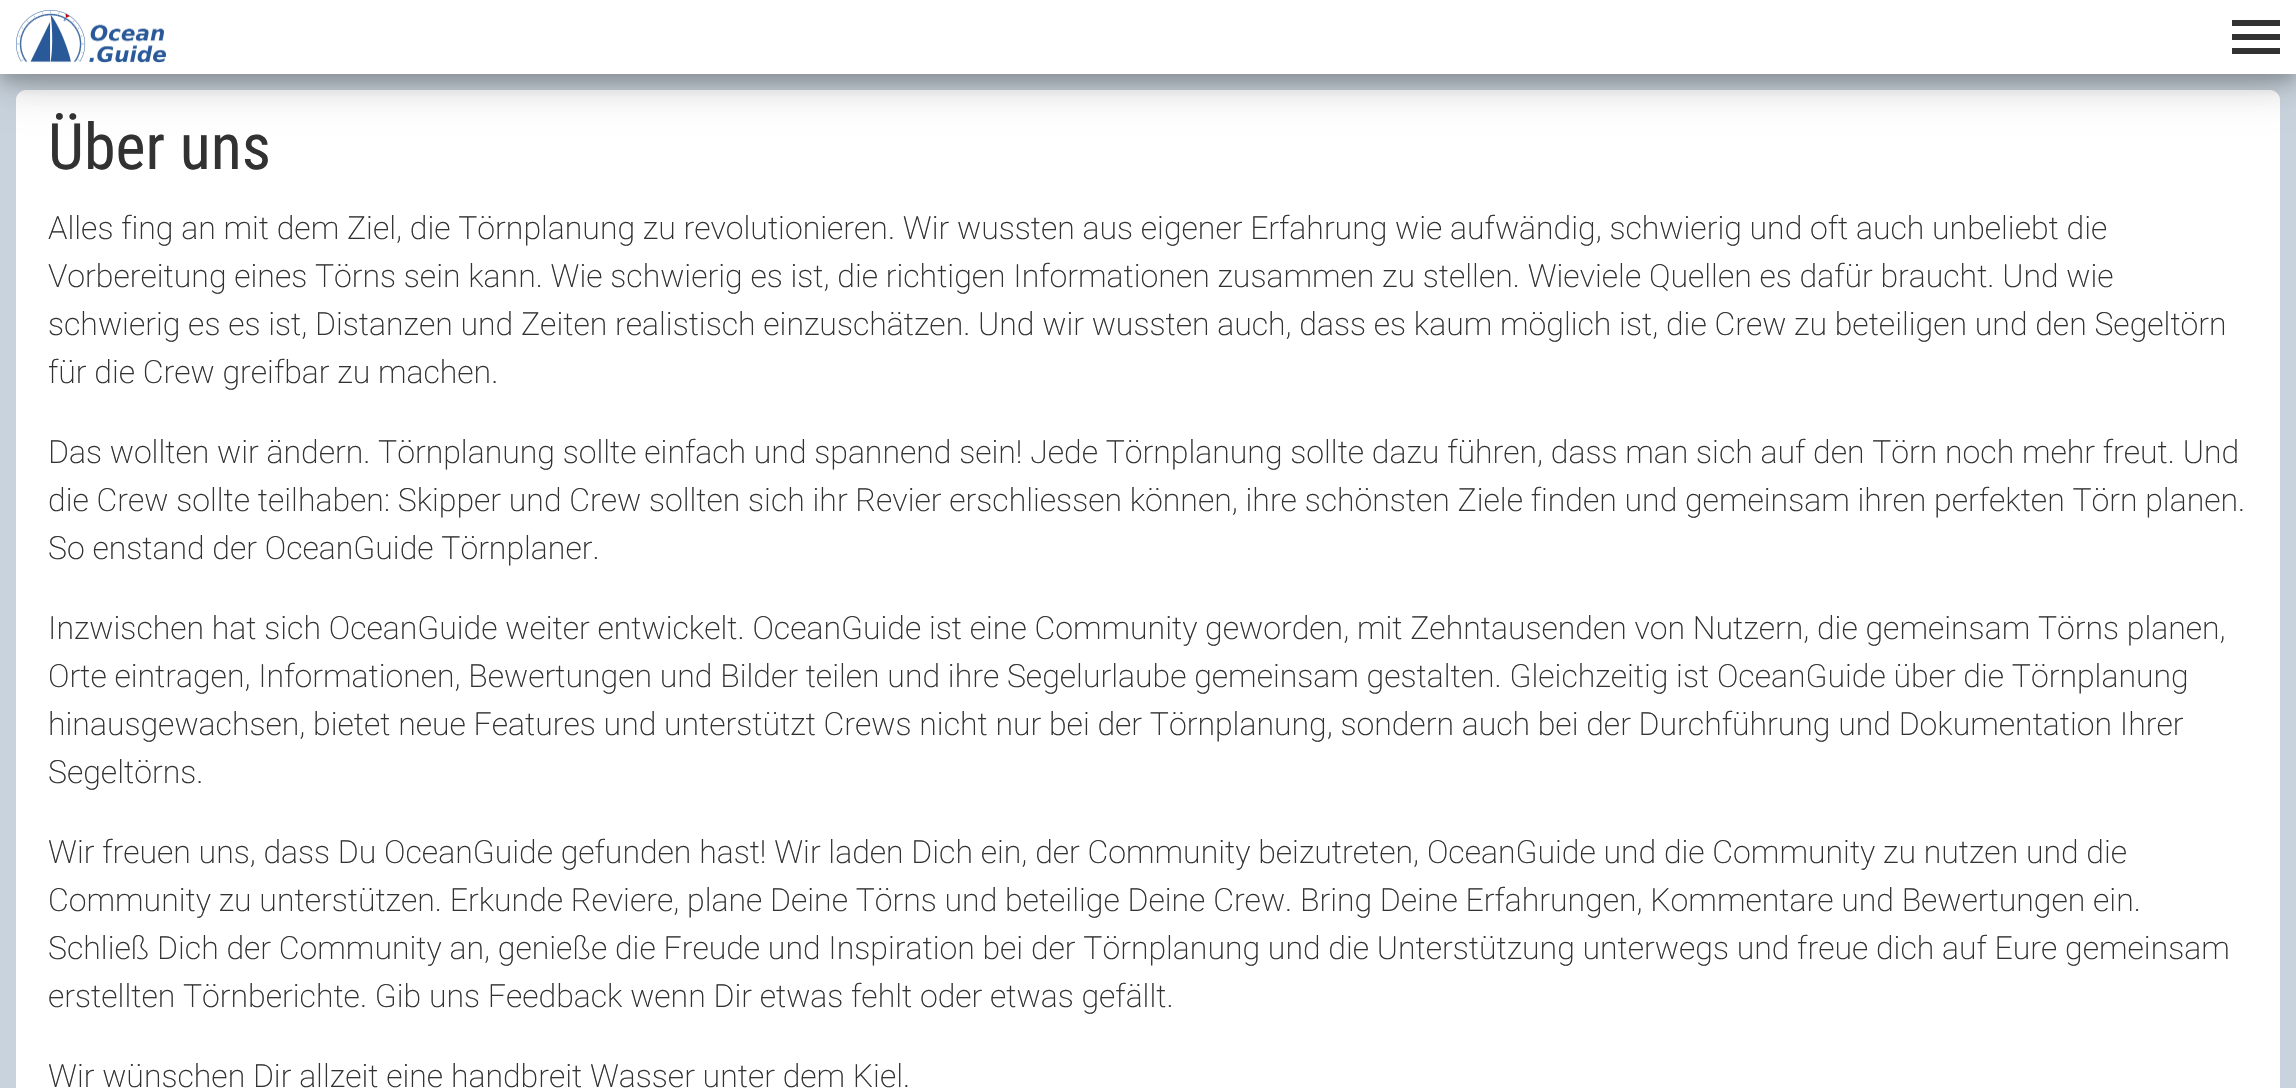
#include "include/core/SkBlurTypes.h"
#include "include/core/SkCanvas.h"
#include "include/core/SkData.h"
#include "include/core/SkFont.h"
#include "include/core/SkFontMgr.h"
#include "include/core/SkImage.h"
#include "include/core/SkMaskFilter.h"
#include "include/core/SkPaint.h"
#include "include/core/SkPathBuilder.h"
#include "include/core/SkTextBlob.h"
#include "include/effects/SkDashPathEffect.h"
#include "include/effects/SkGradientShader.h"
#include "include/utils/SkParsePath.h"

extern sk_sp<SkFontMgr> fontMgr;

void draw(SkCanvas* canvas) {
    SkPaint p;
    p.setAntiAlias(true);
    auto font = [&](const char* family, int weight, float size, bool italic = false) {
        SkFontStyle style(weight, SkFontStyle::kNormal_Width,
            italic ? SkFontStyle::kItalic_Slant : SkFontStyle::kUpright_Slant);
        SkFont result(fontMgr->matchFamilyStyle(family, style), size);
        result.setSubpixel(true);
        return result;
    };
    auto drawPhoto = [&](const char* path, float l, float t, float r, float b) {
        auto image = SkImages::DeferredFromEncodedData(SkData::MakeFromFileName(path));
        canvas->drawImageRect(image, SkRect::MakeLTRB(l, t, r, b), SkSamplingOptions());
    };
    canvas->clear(0xFFC9D3DD);
    p.setColor(0xFFFFFFFF);
    canvas->drawPath(SkPathBuilder().moveTo(26, 90).lineTo(2270, 90).cubicTo(2275.5f, 90, 2280, 94.5f, 2280, 100).lineTo(2280, 1088).lineTo(16, 1088).lineTo(16, 100).cubicTo(16, 94.5f, 20.5f, 90, 26, 90).close().detach(), p);
    p.setColor(0x30000000);
    p.setMaskFilter(SkMaskFilter::MakeBlur(kNormal_SkBlurStyle, 20));
    canvas->drawRect(SkRect::MakeLTRB(0, 12, 2296, 86), p);
    p.setMaskFilter(nullptr);
    p.setColor(0x33000000);
    p.setMaskFilter(SkMaskFilter::MakeBlur(kNormal_SkBlurStyle, 8));
    canvas->drawRect(SkRect::MakeLTRB(0, 8, 2296, 82), p);
    p.setMaskFilter(nullptr);
    p.setColor(0xFFFFFFFF);
    canvas->drawRect(SkRect::MakeLTRB(0, 0, 2296, 74), p);
    drawPhoto("media/1.png", 16, 10, 166, 63);
    {
        const struct { float l, t, r, b; SkColor color; } items[] = {
            {2232, 20, 2280, 26, 0xFF323232},
            {2232, 34, 2280, 40, 0xFF323232},
            {2232, 48, 2280, 54, 0xFF323232},
        };
        for (auto [l, t, r, b, color] : items) {
            p.setColor(color);
            canvas->drawRect(SkRect::MakeLTRB(l, t, r, b), p);
        }
    }
    auto font1 = font("Roboto Condensed", 400, 64);
    canvas->drawString("Über uns", 48, 169, font1, p);
    auto font2 = font("Roboto", 200, 32);
    {
        const struct { const char* s; float x, y; } items[] = {
            {"Alles fing an mit dem Ziel, die Törnplanung zu revolutionieren. Wir wussten aus eigener Erfahrung wie aufwändig, schwierig und oft auch unbeliebt die", 48, 239},
            {"Vorbereitung eines Törns sein kann. Wie schwierig es ist, die richtigen Informationen zusammen zu stellen. Wieviele Quellen es dafür braucht. Und wie", 48, 287},
            {"schwierig es es ist, Distanzen und Zeiten realistisch einzuschätzen. Und wir wussten auch, dass es kaum möglich ist, die Crew zu beteiligen und den Segeltörn", 48, 335},
            {"für die Crew greifbar zu machen.", 48, 383},
            {"Das wollten wir ändern. Törnplanung sollte einfach und spannend sein! Jede Törnplanung sollte dazu führen, dass man sich auf den Törn noch mehr freut. Und", 48, 463},
            {"die Crew sollte teilhaben: Skipper und Crew sollten sich ihr Revier erschliessen können, ihre schönsten Ziele finden und gemeinsam ihren perfekten Törn planen.", 48, 511},
            {"So enstand der OceanGuide Törnplaner.", 48, 559},
            {"Inzwischen hat sich OceanGuide weiter entwickelt. OceanGuide ist eine Community geworden, mit Zehntausenden von Nutzern, die gemeinsam Törns planen,", 48, 639},
            {"Orte eintragen, Informationen, Bewertungen und Bilder teilen und ihre Segelurlaube gemeinsam gestalten. Gleichzeitig ist OceanGuide über die Törnplanung", 48, 687},
            {"hinausgewachsen, bietet neue Features und unterstützt Crews nicht nur bei der Törnplanung, sondern auch bei der Durchführung und Dokumentation Ihrer", 48, 735},
            {"Segeltörns.", 48, 783},
            {"Wir freuen uns, dass Du OceanGuide gefunden hast! Wir laden Dich ein, der Community beizutreten, OceanGuide und die Community zu nutzen und die", 48, 863},
            {"Community zu unterstützen. Erkunde Reviere, plane Deine Törns und beteilige Deine Crew. Bring Deine Erfahrungen, Kommentare und Bewertungen ein.", 48, 911},
            {"Schließ Dich der Community an, genieße die Freude und Inspiration bei der Törnplanung und die Unterstützung unterwegs und freue dich auf Eure gemeinsam", 48, 959},
            {"erstellten Törnberichte. Gib uns Feedback wenn Dir etwas fehlt oder etwas gefällt.", 48, 1007},
            {"Wir wünschen Dir allzeit eine handbreit Wasser unter dem Kiel.", 48, 1087},
        };
        for (auto [s, x, y] : items) {
            canvas->drawString(s, x, y, font2, p);
        }
    }
}
